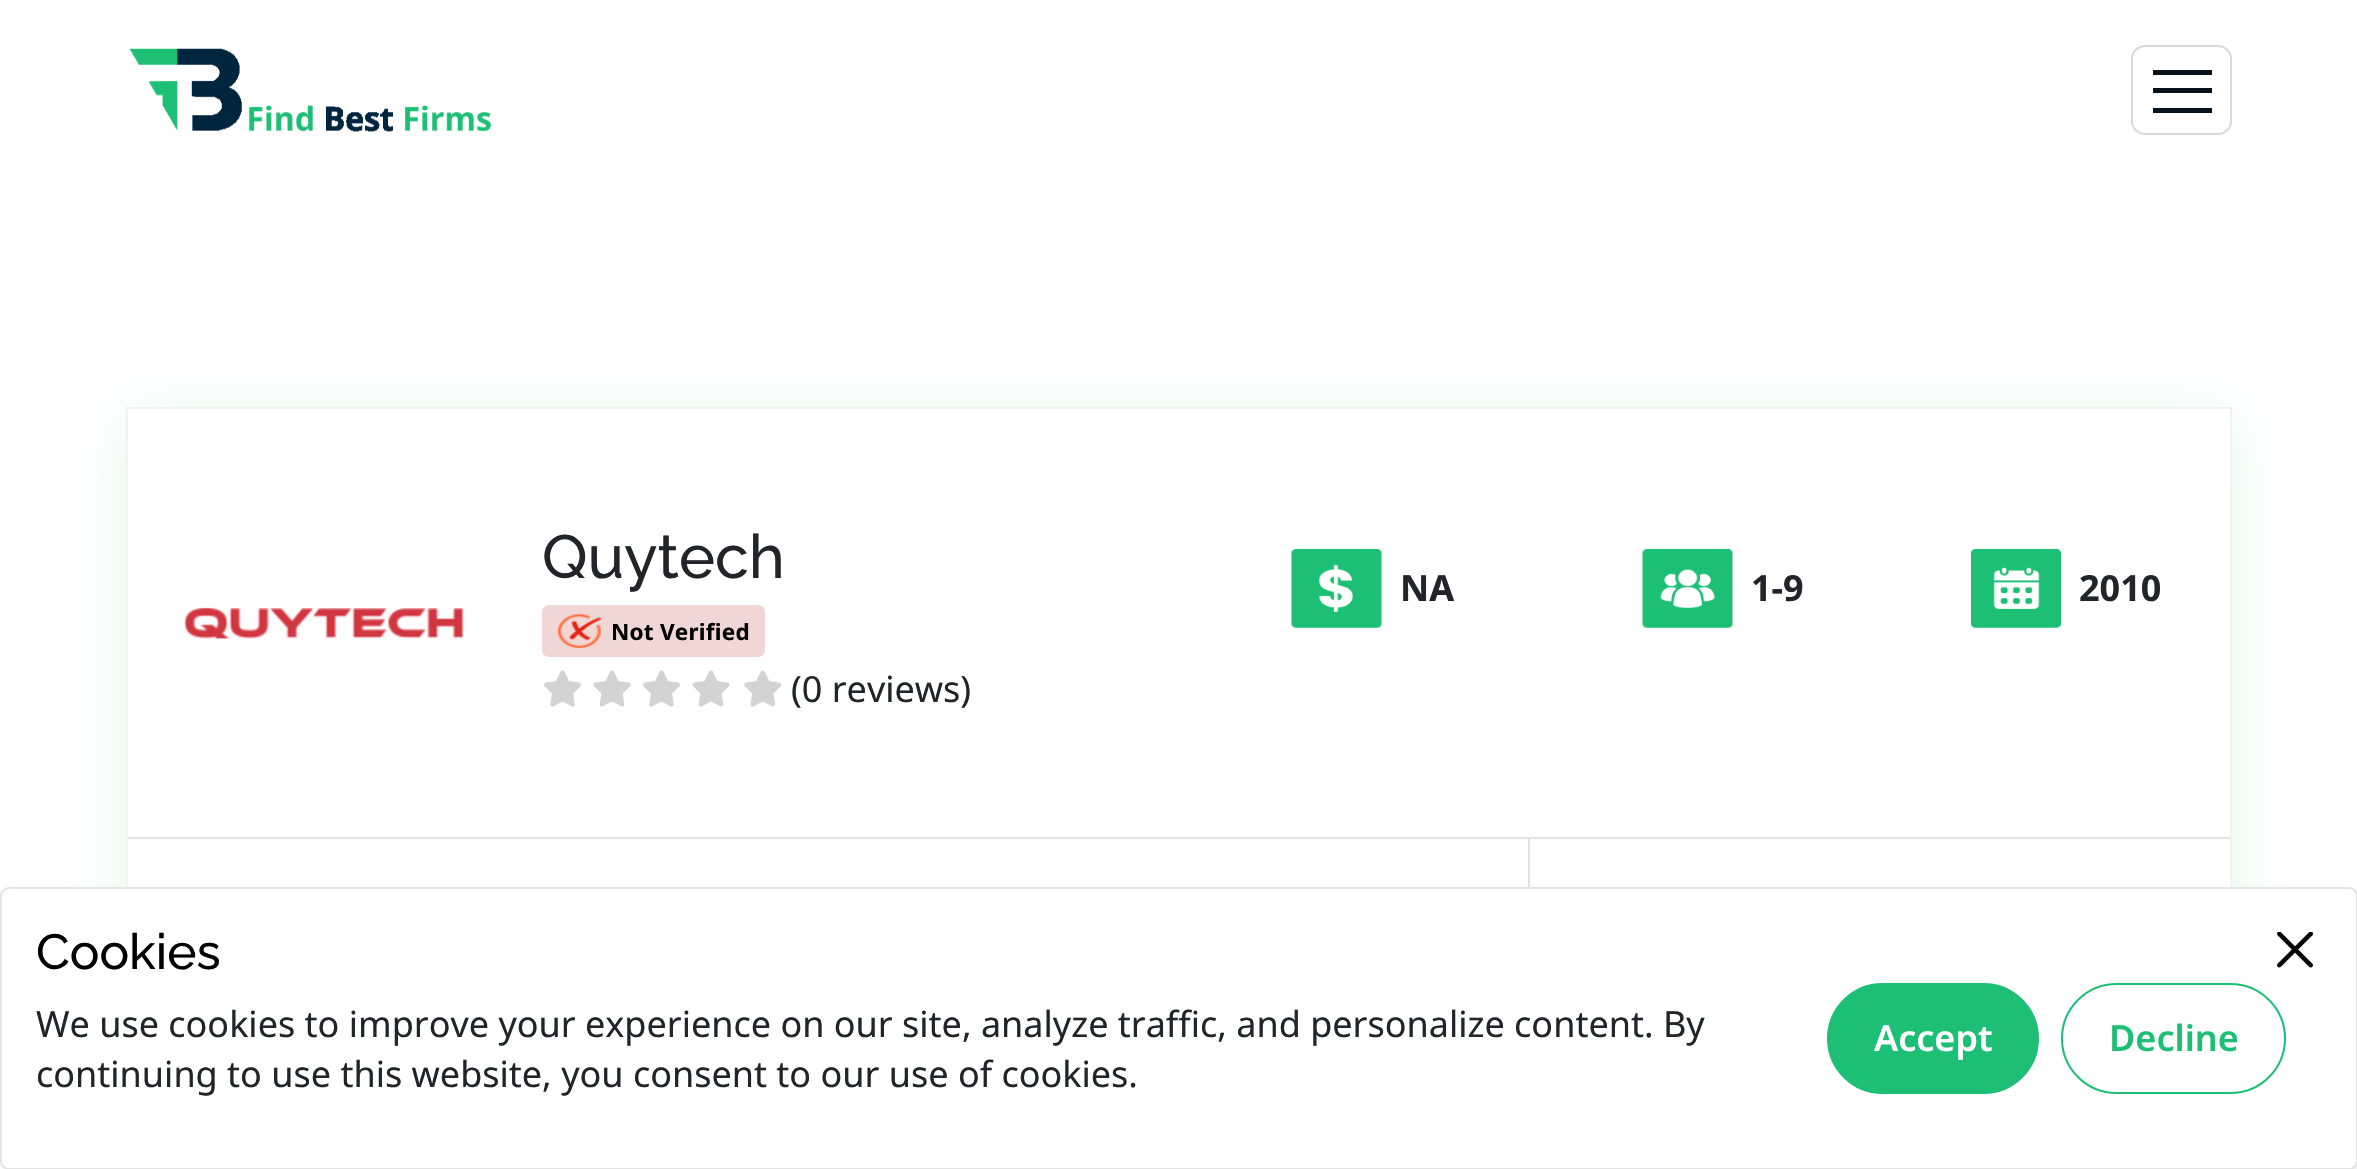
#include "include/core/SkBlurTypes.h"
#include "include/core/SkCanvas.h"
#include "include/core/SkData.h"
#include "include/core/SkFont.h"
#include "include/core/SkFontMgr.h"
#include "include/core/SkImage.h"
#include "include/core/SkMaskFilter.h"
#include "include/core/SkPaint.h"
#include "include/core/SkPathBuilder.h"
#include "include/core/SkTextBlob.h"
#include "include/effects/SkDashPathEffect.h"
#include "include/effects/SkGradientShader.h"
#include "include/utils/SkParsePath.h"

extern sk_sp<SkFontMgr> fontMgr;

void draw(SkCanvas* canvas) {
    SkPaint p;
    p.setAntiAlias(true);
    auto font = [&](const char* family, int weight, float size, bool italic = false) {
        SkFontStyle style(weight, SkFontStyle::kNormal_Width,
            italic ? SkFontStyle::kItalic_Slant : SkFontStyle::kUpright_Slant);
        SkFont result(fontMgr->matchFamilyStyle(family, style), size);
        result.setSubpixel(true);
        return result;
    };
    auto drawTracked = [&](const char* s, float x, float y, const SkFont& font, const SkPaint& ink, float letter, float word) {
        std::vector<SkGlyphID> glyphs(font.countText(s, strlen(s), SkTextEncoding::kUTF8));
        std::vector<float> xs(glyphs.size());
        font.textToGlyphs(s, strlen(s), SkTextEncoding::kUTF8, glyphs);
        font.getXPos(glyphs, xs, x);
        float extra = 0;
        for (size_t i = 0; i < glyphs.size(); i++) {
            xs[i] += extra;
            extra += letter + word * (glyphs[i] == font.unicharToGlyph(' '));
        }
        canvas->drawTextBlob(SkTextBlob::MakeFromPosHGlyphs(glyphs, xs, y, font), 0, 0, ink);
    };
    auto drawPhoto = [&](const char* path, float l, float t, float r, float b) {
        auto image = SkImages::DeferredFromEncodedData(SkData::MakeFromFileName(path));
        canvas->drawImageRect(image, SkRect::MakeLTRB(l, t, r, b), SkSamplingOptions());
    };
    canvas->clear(0xFFFFFFFF);
    drawPhoto("media/1.png", 129, 48, 491, 132);
    p.setStyle(SkPaint::kStroke_Style);
    p.setStrokeWidth(2);
    p.setColor(0xFFD9D9D9);
    canvas->drawRoundRect(SkRect::MakeLTRB(2132, 46, 2231, 134), 13, 13, p);
    p.setStyle(SkPaint::kFill_Style);
    {
        const struct { float l, t, r, b; SkColor color; } items[] = {
            {2153, 70, 2212, 75, 0xFF06131C},
            {2153, 88, 2212, 93, 0xFF06131C},
            {2153, 108, 2212, 113, 0xFF06131C},
        };
        for (auto [l, t, r, b, color] : items) {
            p.setColor(color);
            canvas->drawRect(SkRect::MakeLTRB(l, t, r, b), p);
        }
    }
    canvas->save();
    canvas->clipPath(SkPathBuilder(SkPathFillType::kEvenOdd).moveTo(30, 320).lineTo(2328, 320).lineTo(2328, 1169).lineTo(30, 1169).close().moveTo(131, 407).lineTo(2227, 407).cubicTo(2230, 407, 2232, 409, 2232, 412).lineTo(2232, 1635).cubicTo(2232, 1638, 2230, 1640, 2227, 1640).lineTo(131, 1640).cubicTo(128, 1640, 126, 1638, 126, 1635).lineTo(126, 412).cubicTo(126, 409, 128, 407, 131, 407).close().detach(), true);
    p.setColor(0x211DBF74);
    p.setMaskFilter(SkMaskFilter::MakeBlur(kNormal_SkBlurStyle, 31.5f));
    canvas->drawRoundRect(SkRect::MakeLTRB(126, 416, 2232, 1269), 5, 5, p);
    p.setMaskFilter(nullptr);
    canvas->restore();
    p.setStyle(SkPaint::kStroke_Style);
    p.setColor(0x0D000000);
    canvas->drawRect(SkRect::MakeLTRB(127, 408, 2231, 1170), p);
    p.setStyle(SkPaint::kFill_Style);
    p.setColor(0xFFE3E3E3);
    canvas->drawRect(SkRect::MakeLTRB(128, 837, 2230, 839), p);
    drawPhoto("media/2.png", 184, 607, 464, 640);
    auto font1 = font("Raleway", 500, 61);
    p.setColor(0xFF212529);
    canvas->drawString("Quytech", 542, 578, font1, p);
    p.setColor(0xFFF1D6D6);
    canvas->drawRoundRect(SkRect::MakeLTRB(542, 605, 765, 657), 7, 7, p);
    drawPhoto("media/3.png", 558, 614, 601, 648);
    auto font2 = font("Noto Sans", 700, 22.5f);
    p.setColor(0xFF000000);
    drawTracked("Not Verified", 611, 640, font2, p, 0.25f, 0);
    drawPhoto("media/4.png", 544, 670, 581, 707);
    drawPhoto("media/5.png", 593, 670, 631, 707);
    drawPhoto("media/4.png", 643, 670, 680, 707);
    drawPhoto("media/5.png", 692, 670, 730, 707);
    drawPhoto("media/6.png", 744, 670, 782, 707);
    auto font3 = font("Noto Sans", 400, 36);
    p.setColor(0xFF212529);
    canvas->drawString("(0 reviews)", 791, 702, font3, p);
    drawPhoto("media/7.png", 1291, 549, 1382, 628);
    auto font4 = font("Noto Sans", 700, 36);
    canvas->drawString("NA", 1400, 601, font4, p);
    drawPhoto("media/8.png", 1642, 549, 1733, 628);
    canvas->drawString("1-9", 1751, 601, font4, p);
    drawPhoto("media/9.png", 1971, 549, 2061, 628);
    canvas->drawString("2010", 2079, 601, font4, p);
    p.setColor(0xFFE3E3E3);
    canvas->drawRect(SkRect::MakeLTRB(1528, 839, 1530, 887), p);
    p.setColor(0x0D000000);
    p.setMaskFilter(SkMaskFilter::MakeBlur(kNormal_SkBlurStyle, 4.5f));
    canvas->drawRoundRect(SkRect::MakeLTRB(5, 893, 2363, 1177), 9, 9, p);
    p.setMaskFilter(nullptr);
    p.setColor(0xFFFFFFFF);
    canvas->drawRoundRect(SkRect::MakeLTRB(1, 888, 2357, 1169), 8, 8, p);
    p.setStyle(SkPaint::kStroke_Style);
    p.setColor(0xFFE4E4E4);
    canvas->drawRoundRect(SkRect::MakeLTRB(1, 888, 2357, 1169), 8, 8, p);
    auto font5 = font("Raleway", 500, 49.5f);
    p.setStyle(SkPaint::kFill_Style);
    p.setColor(0xFF000000);
    canvas->drawString("Cookies", 36, 969, font5, p);
    p.setColor(0xFF212529);
    canvas->drawString("We use cookies to improve your experience on our site, analyze traffic, and personalize content. By", 36, 1037, font3, p);
    canvas->drawString("continuing to use this website, you consent to our use of cookies.", 36, 1087, font3, p);
    p.setColor(0xFF1DBF74);
    canvas->drawRoundRect(SkRect::MakeLTRB(1828, 984, 2038, 1093), 54.5f, 54.5f, p);
    p.setStyle(SkPaint::kStroke_Style);
    canvas->drawRoundRect(SkRect::MakeLTRB(1828, 984, 2038, 1093), 54.5f, 54.5f, p);
    auto font6 = font("Noto Sans", 600, 36);
    p.setStyle(SkPaint::kFill_Style);
    p.setColor(0xFFFFFFFF);
    canvas->drawString("Accept", 1874, 1051, font6, p);
    p.setStyle(SkPaint::kStroke_Style);
    p.setColor(0xFF1DBF74);
    canvas->drawRoundRect(SkRect::MakeLTRB(2062, 984, 2285, 1093), 54.5f, 54.5f, p);
    p.setStyle(SkPaint::kFill_Style);
    canvas->drawString("Decline", 2109, 1051, font6, p);
    drawPhoto("media/10.png", 2277, 932, 2313, 968);
}
